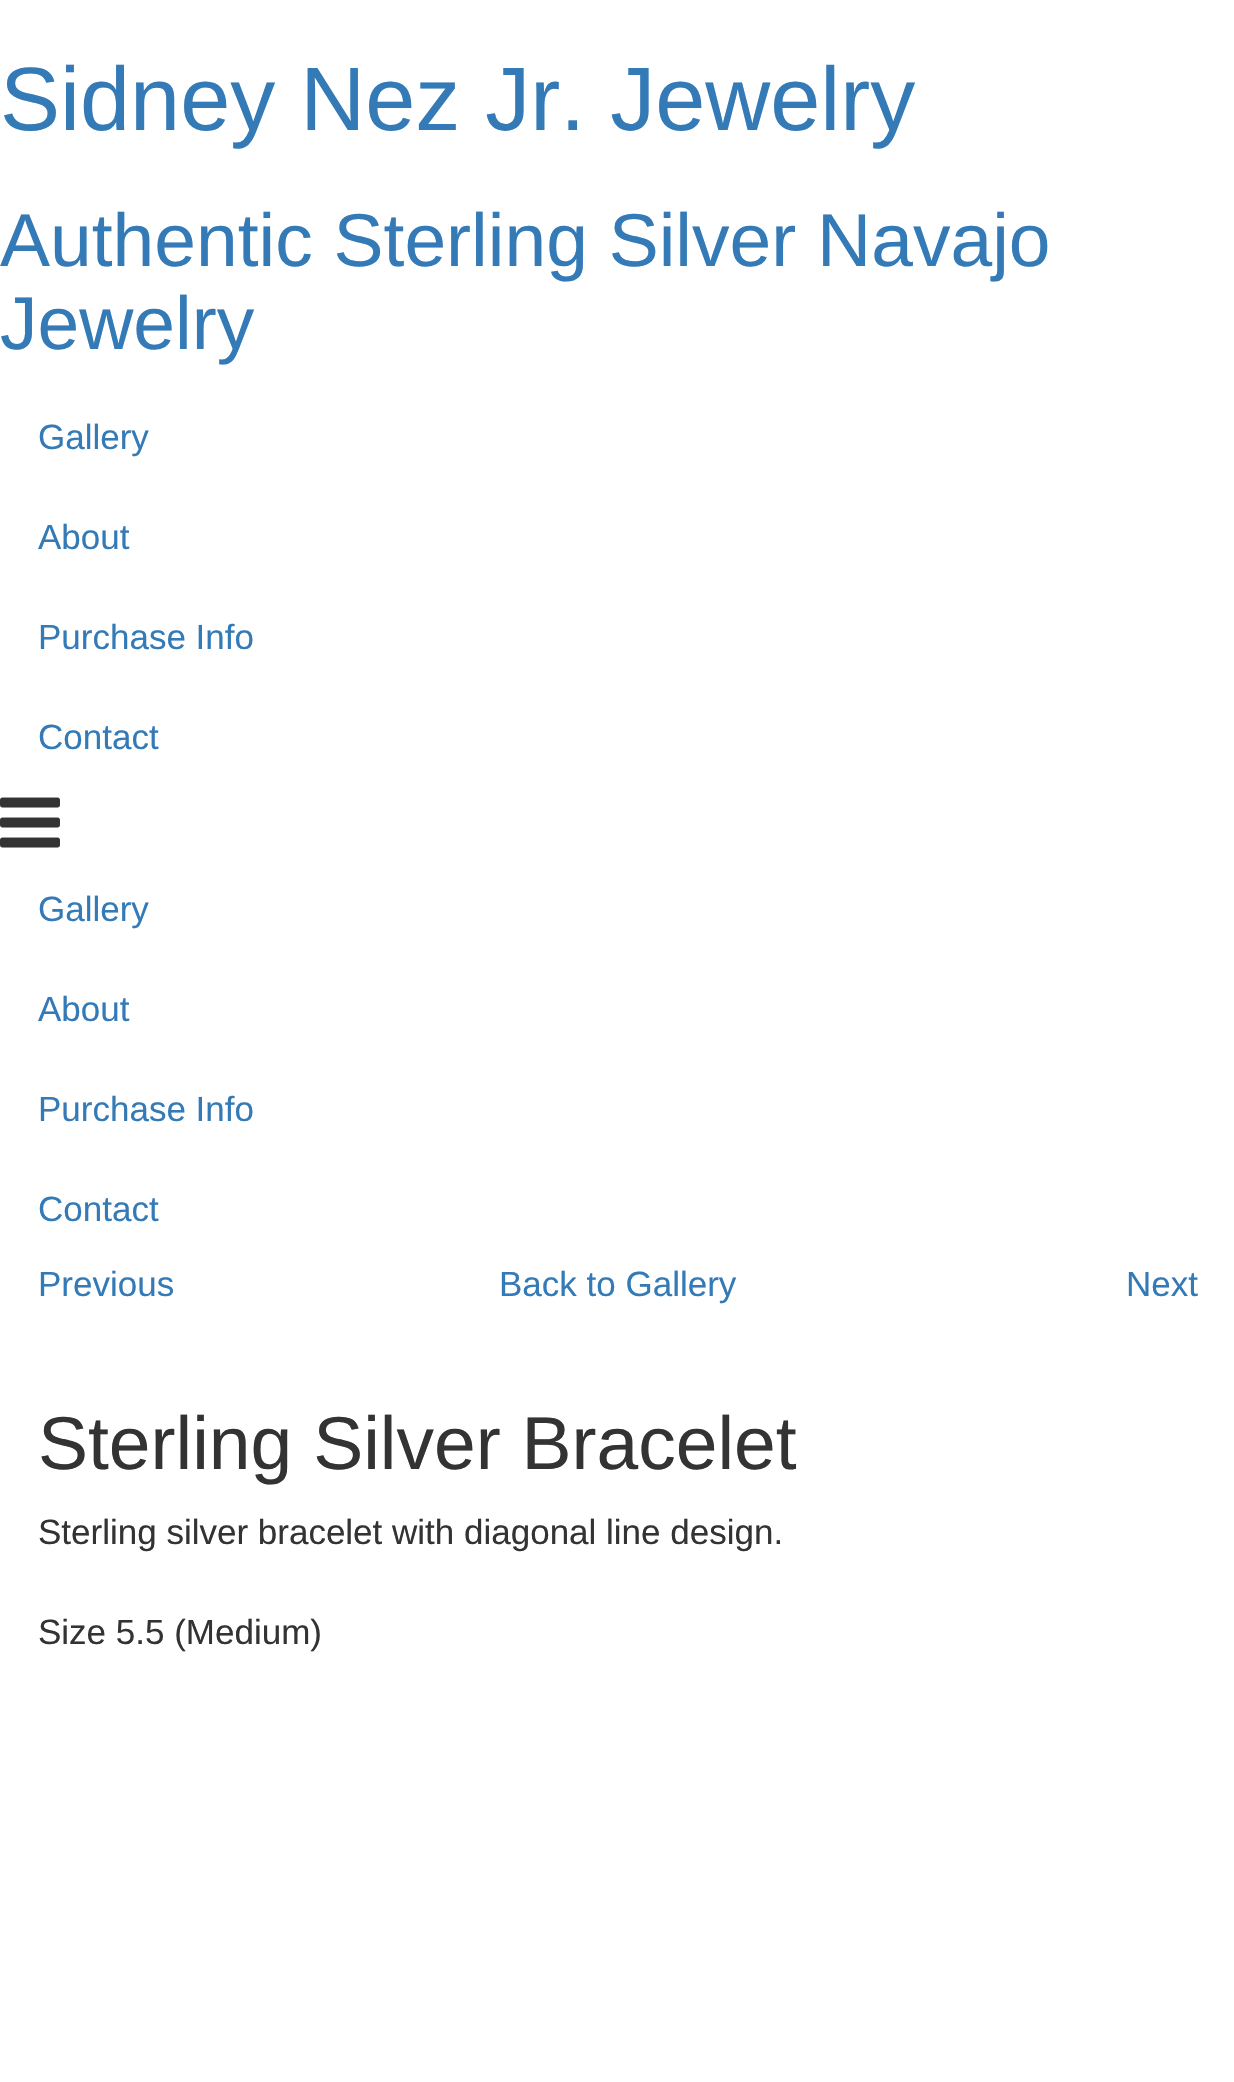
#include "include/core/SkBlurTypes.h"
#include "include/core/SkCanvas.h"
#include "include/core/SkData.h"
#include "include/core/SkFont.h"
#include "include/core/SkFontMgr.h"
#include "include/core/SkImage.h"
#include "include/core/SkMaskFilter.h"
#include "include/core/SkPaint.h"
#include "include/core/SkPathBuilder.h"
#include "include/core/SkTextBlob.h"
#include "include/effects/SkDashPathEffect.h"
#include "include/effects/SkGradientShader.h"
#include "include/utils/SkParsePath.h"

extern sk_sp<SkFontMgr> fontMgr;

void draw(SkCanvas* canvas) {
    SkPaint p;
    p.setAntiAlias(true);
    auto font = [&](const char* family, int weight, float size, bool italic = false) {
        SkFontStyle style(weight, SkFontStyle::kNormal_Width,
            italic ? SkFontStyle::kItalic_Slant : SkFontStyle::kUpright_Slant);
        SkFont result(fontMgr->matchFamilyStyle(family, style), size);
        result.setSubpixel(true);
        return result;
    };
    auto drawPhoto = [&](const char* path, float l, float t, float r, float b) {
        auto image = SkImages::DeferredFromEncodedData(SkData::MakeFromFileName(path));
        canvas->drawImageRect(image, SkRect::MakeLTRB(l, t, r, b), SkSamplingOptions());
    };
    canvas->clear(0xFFFFFFFF);
    auto font1 = font("Liberation Sans", 400, 90);
    p.setColor(0xFF337AB7);
    canvas->drawString("Sidney Nez Jr. Jewelry", 0, 130, font1, p);
    auto font2 = font("Liberation Sans", 400, 75);
    canvas->drawString("Authentic Sterling Silver Navajo", 0, 266, font2, p);
    canvas->drawString("Jewelry", 0, 349, font2, p);
    auto font3 = font("Liberation Sans", 400, 35);
    {
        const struct { const char* s; float x, y; } items[] = {
            {"Gallery", 38, 449},
            {"About", 38, 549},
            {"Purchase Info", 38, 649},
            {"Contact", 38, 749},
        };
        for (auto [s, x, y] : items) {
            canvas->drawString(s, x, y, font3, p);
        }
    }
    drawPhoto("media/1.png", 0, 797, 60, 848);
    {
        const struct { const char* s; float x, y; } items[] = {
            {"Gallery", 38, 921},
            {"About", 38, 1021},
            {"Purchase Info", 38, 1121},
            {"Contact", 38, 1221},
            {"Previous", 38, 1296},
            {"Back to Gallery", 499, 1296},
            {"Next", 1126, 1296},
        };
        for (auto [s, x, y] : items) {
            canvas->drawString(s, x, y, font3, p);
        }
    }
    p.setColor(0xFF333333);
    canvas->drawString("Sterling Silver Bracelet", 38, 1469, font2, p);
    canvas->drawString("Sterling silver bracelet with diagonal line design.", 38, 1544, font3, p);
    canvas->drawString("Size 5.5 (Medium)", 38, 1644, font3, p);
}
